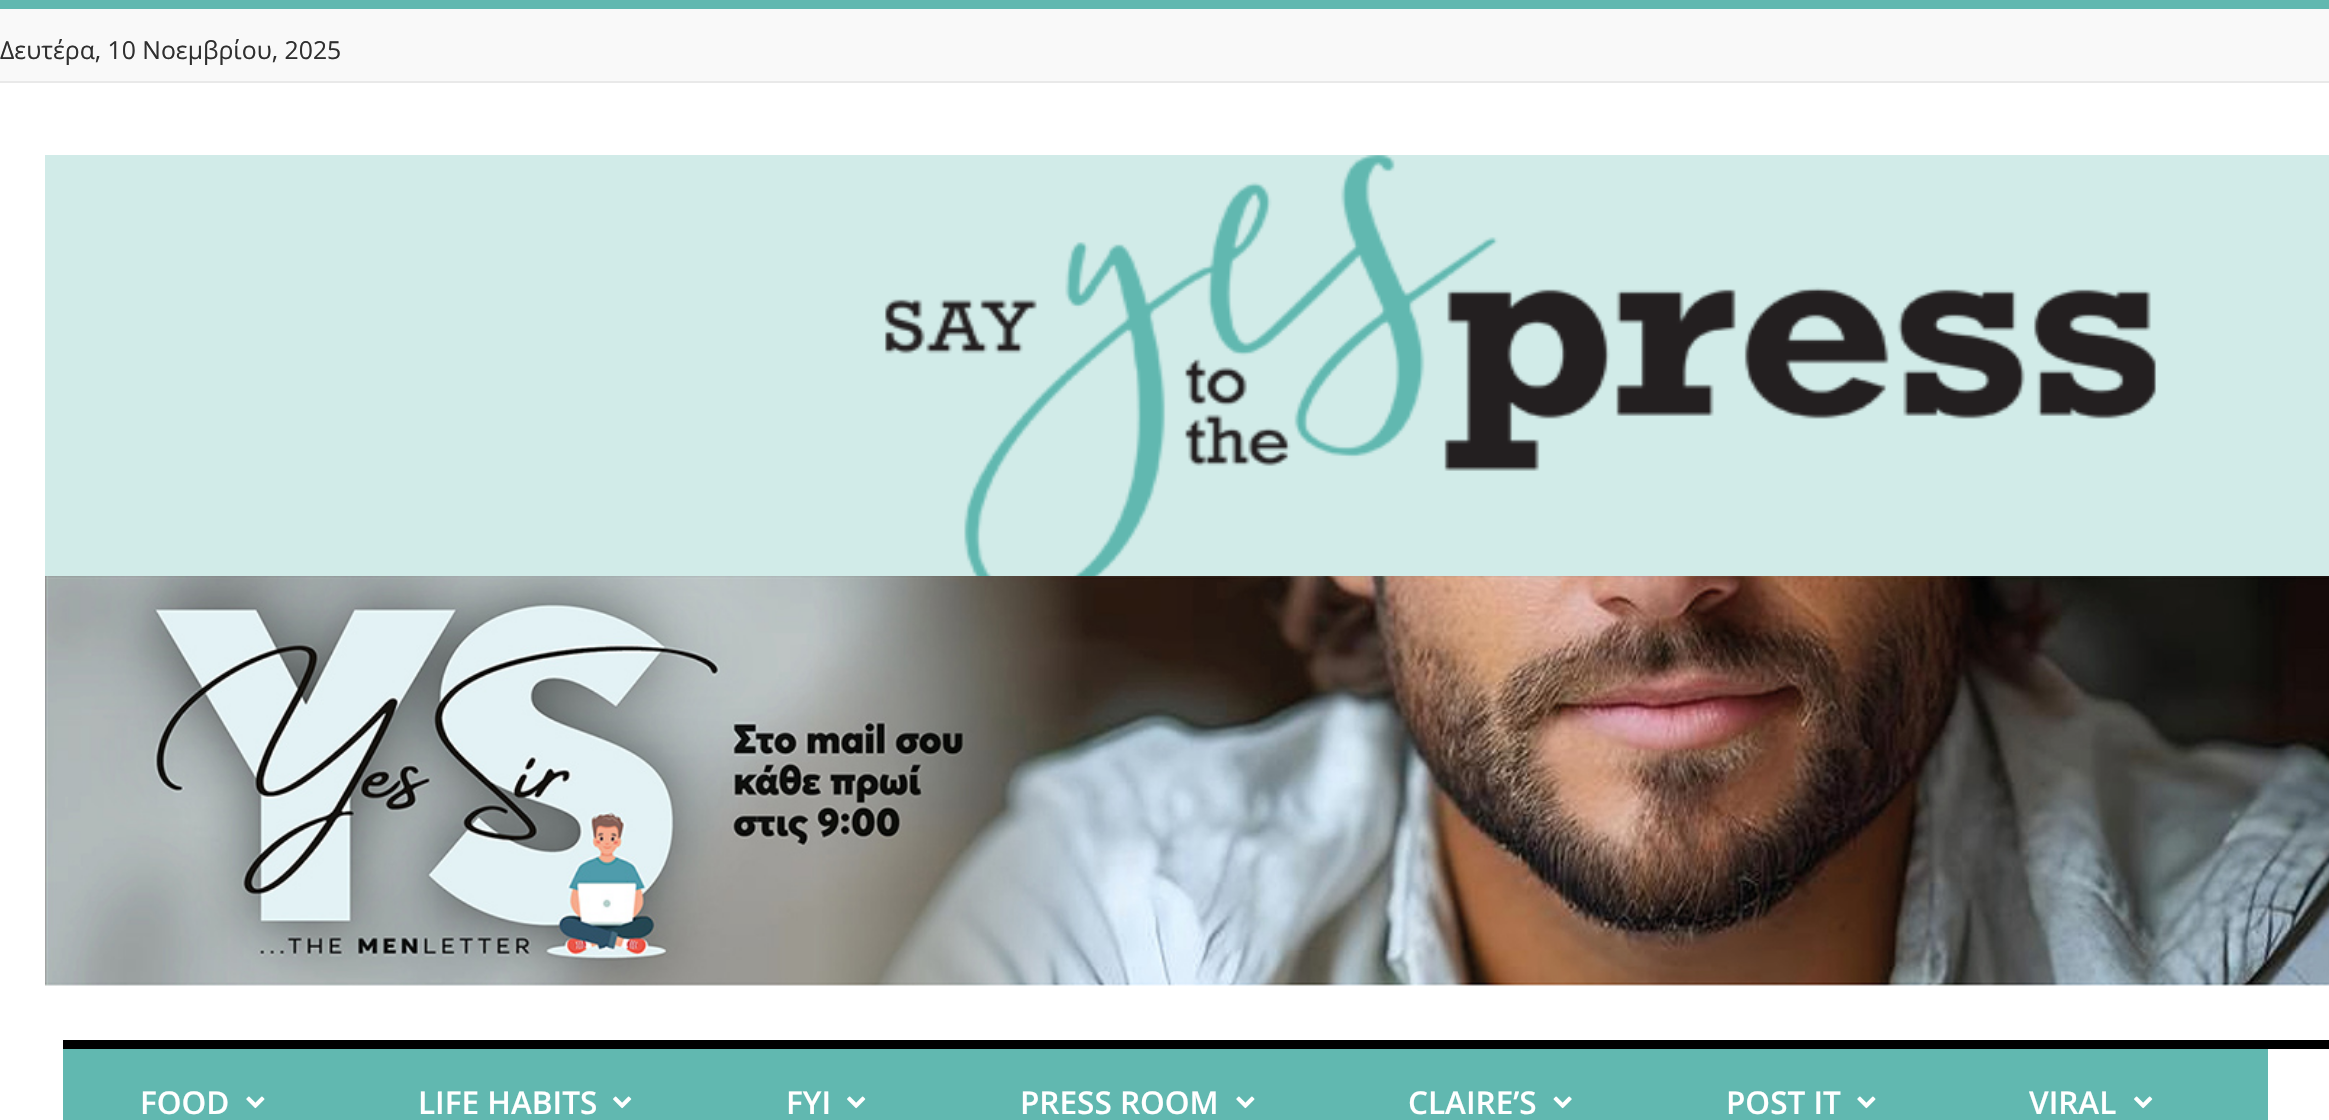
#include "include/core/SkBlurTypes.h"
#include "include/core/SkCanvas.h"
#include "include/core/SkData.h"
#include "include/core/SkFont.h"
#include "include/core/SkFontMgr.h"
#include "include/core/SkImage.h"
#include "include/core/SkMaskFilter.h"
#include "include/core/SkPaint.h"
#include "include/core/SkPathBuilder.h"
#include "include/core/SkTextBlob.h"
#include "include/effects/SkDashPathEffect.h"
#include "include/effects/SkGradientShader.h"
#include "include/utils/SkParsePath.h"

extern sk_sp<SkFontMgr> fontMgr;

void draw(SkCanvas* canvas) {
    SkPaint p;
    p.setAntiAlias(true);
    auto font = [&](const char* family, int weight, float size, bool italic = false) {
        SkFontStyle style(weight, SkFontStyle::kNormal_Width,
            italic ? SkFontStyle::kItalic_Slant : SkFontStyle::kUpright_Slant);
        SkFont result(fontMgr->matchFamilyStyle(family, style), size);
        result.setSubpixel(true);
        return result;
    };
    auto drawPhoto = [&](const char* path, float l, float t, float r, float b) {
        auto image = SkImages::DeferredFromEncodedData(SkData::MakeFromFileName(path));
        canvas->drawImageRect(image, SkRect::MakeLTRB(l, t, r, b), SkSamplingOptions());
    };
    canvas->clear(0xFFFFFFFF);
    {
        const struct { float l, t, r, b; SkColor color; } items[] = {
            {0, 9, 2329, 81, 0xFFF9F9F9},
            {0, 0, 2329, 9, 0xFF61B8B0},
            {0, 81, 2329, 83, 0xFFE9E9E9},
        };
        for (auto [l, t, r, b, color] : items) {
            p.setColor(color);
            canvas->drawRect(SkRect::MakeLTRB(l, t, r, b), p);
        }
    }
    auto font1 = font("Open Sans", 400, 24.75f);
    p.setColor(0xFF2F2F2F);
    canvas->drawString("Δευτέρα, 10 Νοεμβρίου, 2025", 0, 59, font1, p);
    p.setColor(0xFFD1EBE8);
    canvas->drawRect(SkRect::MakeLTRB(45, 155, 2329, 576), p);
    drawPhoto("media/1.png", 885, 155, 2156, 576);
    drawPhoto("media/2.png", 45, 576, 2329, 986);
    p.setColor(0xFF61B8B0);
    canvas->drawRect(SkRect::MakeLTRB(63, 1049, 2268, 1120), p);
    p.setColor(0xFF000000);
    canvas->drawRect(SkRect::MakeLTRB(63, 1040, 2329, 1049), p);
    auto font2 = font("Open Sans", 600, 31.5f);
    p.setColor(0xFFFFFFFF);
    canvas->drawString("FOOD", 140, 1114, font2, p);
    drawPhoto("media/3.png", 246, 1096, 265, 1109);
    canvas->drawString("LIFE HABITS", 418, 1114, font2, p);
    drawPhoto("media/4.png", 613, 1096, 632, 1109);
    canvas->drawString("FYI", 786, 1114, font2, p);
    drawPhoto("media/4.png", 847, 1096, 866, 1109);
    canvas->drawString("PRESS ROOM", 1020, 1114, font2, p);
    drawPhoto("media/3.png", 1236, 1096, 1255, 1109);
    canvas->drawString("CLAIRE’S", 1408, 1114, font2, p);
    drawPhoto("media/5.png", 1553, 1096, 1572, 1109);
    canvas->drawString("POST IT", 1726, 1114, font2, p);
    drawPhoto("media/3.png", 1857, 1096, 1876, 1109);
    canvas->drawString("VIRAL", 2029, 1114, font2, p);
    drawPhoto("media/4.png", 2134, 1096, 2153, 1109);
}
